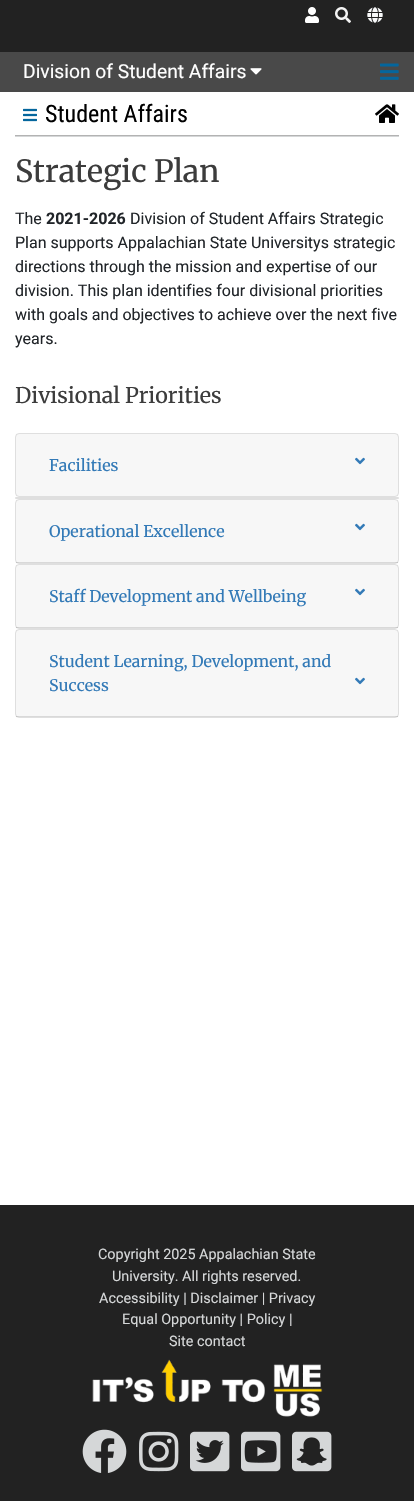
#include "include/core/SkBlurTypes.h"
#include "include/core/SkCanvas.h"
#include "include/core/SkData.h"
#include "include/core/SkFont.h"
#include "include/core/SkFontMgr.h"
#include "include/core/SkImage.h"
#include "include/core/SkMaskFilter.h"
#include "include/core/SkPaint.h"
#include "include/core/SkPathBuilder.h"
#include "include/core/SkTextBlob.h"
#include "include/effects/SkDashPathEffect.h"
#include "include/effects/SkGradientShader.h"
#include "include/utils/SkParsePath.h"

extern sk_sp<SkFontMgr> fontMgr;

void draw(SkCanvas* canvas) {
    SkPaint p;
    p.setAntiAlias(true);
    auto font = [&](const char* family, int weight, float size, bool italic = false) {
        SkFontStyle style(weight, SkFontStyle::kNormal_Width,
            italic ? SkFontStyle::kItalic_Slant : SkFontStyle::kUpright_Slant);
        SkFont result(fontMgr->matchFamilyStyle(family, style), size);
        result.setSubpixel(true);
        return result;
    };
    auto drawPhoto = [&](const char* path, float l, float t, float r, float b) {
        auto image = SkImages::DeferredFromEncodedData(SkData::MakeFromFileName(path));
        canvas->drawImageRect(image, SkRect::MakeLTRB(l, t, r, b), SkSamplingOptions());
    };
    canvas->clear(0xFFFFFFFF);
    p.setColor(0xFF222222);
    canvas->drawRect(SkRect::MakeLTRB(0, 0, 414, 52), p);
    drawPhoto("media/1.png", 305, 7, 319, 23);
    drawPhoto("media/2.png", 335, 7, 351, 23);
    drawPhoto("media/3.png", 367, 7, 383, 23);
    p.setColor(0xFF494949);
    canvas->drawRect(SkRect::MakeLTRB(0, 52, 414, 92), p);
    auto font1 = font("Roboto", 400, 19.25f);
    p.setColor(0xFFFFFFFF);
    canvas->drawString("Division of Student Affairs", 23, 78, font1, p);
    drawPhoto("media/4.png", 250, 68, 262, 75);
    drawPhoto("media/5.png", 380, 63, 399, 80);
    p.setColor(0xFFD5D7D8);
    canvas->drawRect(SkRect::MakeLTRB(15, 136, 399, 137), p);
    p.setColor(0xFFB3B3B3);
    canvas->drawRect(SkRect::MakeLTRB(15, 135, 399, 136), p);
    drawPhoto("media/6.png", 23, 108, 37, 122);
    auto font2 = font("Roboto Condensed", 400, 24);
    p.setColor(0xFF000000);
    canvas->drawString("Student Affairs", 45, 122, font2, p);
    drawPhoto("media/7.png", 375, 104, 399, 123);
    auto font3 = font("Merriweather", 300, 30.5f);
    p.setColor(0xFF3C3C3C);
    canvas->drawString("Strategic Plan", 15, 182, font3, p);
    auto font4 = font("Roboto", 400, 16);
    p.setColor(0xFF212529);
    canvas->drawString("The", 15, 224, font4, p);
    auto font5 = font("Roboto", 700, 16);
    canvas->drawString("2021-2026", 46, 224, font5, p);
    {
        const struct { const char* s; float x, y; } items[] = {
            {"Division of Student Affairs Strategic", 130, 224},
            {"Plan supports Appalachian State Universitys strategic", 15, 248},
            {"directions through the mission and expertise of our", 15, 272},
            {"division. This plan identifies four divisional priorities", 15, 296},
            {"with goals and objectives to achieve over the next five", 15, 320},
            {"years.", 15, 344},
        };
        for (auto [s, x, y] : items) {
            canvas->drawString(s, x, y, font4, p);
        }
    }
    auto font6 = font("Merriweather", 300, 21.5f);
    p.setColor(0xFF3C3C3C);
    canvas->drawString("Divisional Priorities", 15, 403, font6, p);
    p.setStyle(SkPaint::kStroke_Style);
    p.setStrokeWidth(1);
    p.setColor(0xFFDFDFDF);
    canvas->drawRoundRect(SkRect::MakeLTRB(15.5f, 433.5f, 398.5f, 496.5f), 3.5f, 3.5f, p);
    p.setStyle(SkPaint::kFill_Style);
    p.setColor(0x08000000);
    canvas->drawRect(SkRect::MakeLTRB(16, 434, 398, 496), p);
    auto font7 = font("Merriweather", 300, 16);
    p.setColor(0xFF337AB7);
    canvas->drawString("Facilities", 49, 471, font7, p);
    drawPhoto("media/8.png", 355, 457, 365, 465);
    p.setColor(0xFFDFDFDF);
    canvas->drawRoundRect(SkRect::MakeLTRB(15, 497, 399, 499), 1, 1, p);
    p.setStyle(SkPaint::kStroke_Style);
    canvas->drawRoundRect(SkRect::MakeLTRB(15.5f, 499.5f, 398.5f, 563.5f), 3.5f, 3.5f, p);
    p.setStyle(SkPaint::kFill_Style);
    p.setColor(0x08000000);
    canvas->drawRect(SkRect::MakeLTRB(16, 500, 398, 563), p);
    p.setColor(0x1F000000);
    canvas->drawRect(SkRect::MakeLTRB(16, 562, 398, 563), p);
    p.setColor(0xFF337AB7);
    canvas->drawString("Operational Excellence", 49, 537, font7, p);
    drawPhoto("media/8.png", 355, 523, 365, 531);
    p.setStyle(SkPaint::kStroke_Style);
    p.setColor(0xFFDFDFDF);
    canvas->drawRoundRect(SkRect::MakeLTRB(15.5f, 564.5f, 398.5f, 628.5f), 3.5f, 3.5f, p);
    p.setStyle(SkPaint::kFill_Style);
    p.setColor(0x08000000);
    canvas->drawRect(SkRect::MakeLTRB(16, 565, 398, 628), p);
    p.setColor(0x1F000000);
    canvas->drawRect(SkRect::MakeLTRB(16, 627, 398, 628), p);
    p.setColor(0xFF337AB7);
    canvas->drawString("Staff Development and Wellbeing", 49, 602, font7, p);
    drawPhoto("media/8.png", 355, 588, 365, 596);
    p.setStyle(SkPaint::kStroke_Style);
    p.setColor(0xFFDFDFDF);
    canvas->drawRoundRect(SkRect::MakeLTRB(15.5f, 629.5f, 398.5f, 717.5f), 3.5f, 3.5f, p);
    p.setStyle(SkPaint::kFill_Style);
    p.setColor(0x08000000);
    canvas->drawRect(SkRect::MakeLTRB(16, 630, 398, 717), p);
    p.setColor(0x1F000000);
    canvas->drawRect(SkRect::MakeLTRB(16, 716, 398, 717), p);
    p.setColor(0xFF337AB7);
    canvas->drawString("Student Learning, Development, and", 49, 667, font7, p);
    canvas->drawString("Success", 49, 691, font7, p);
    drawPhoto("media/8.png", 355, 677, 365, 685);
    p.setColor(0xFF222222);
    canvas->drawRect(SkRect::MakeLTRB(0, 1205, 414, 1501), p);
    auto font8 = font("Roboto", 400, 14.4f);
    p.setColor(0xFFD5D7D8);
    {
        const struct { const char* s; float x, y; } items[] = {
            {"Copyright 2025 Appalachian State", 98, 1259},
            {"University. All rights reserved.", 112, 1281},
            {"Accessibility | Disclaimer | Privacy", 99, 1303},
            {"Equal Opportunity | Policy |", 122, 1324},
            {"Site contact", 169, 1346},
        };
        for (auto [s, x, y] : items) {
            canvas->drawString(s, x, y, font8, p);
        }
    }
    drawPhoto("media/9.png", 92, 1359, 323, 1417);
    drawPhoto("media/10.png", 82, 1429, 127, 1473);
    drawPhoto("media/11.png", 139, 1431, 179, 1472);
    drawPhoto("media/12.png", 190, 1431, 230, 1472);
    drawPhoto("media/13.png", 241, 1431, 281, 1472);
    drawPhoto("media/14.png", 292, 1431, 332, 1472);
}
